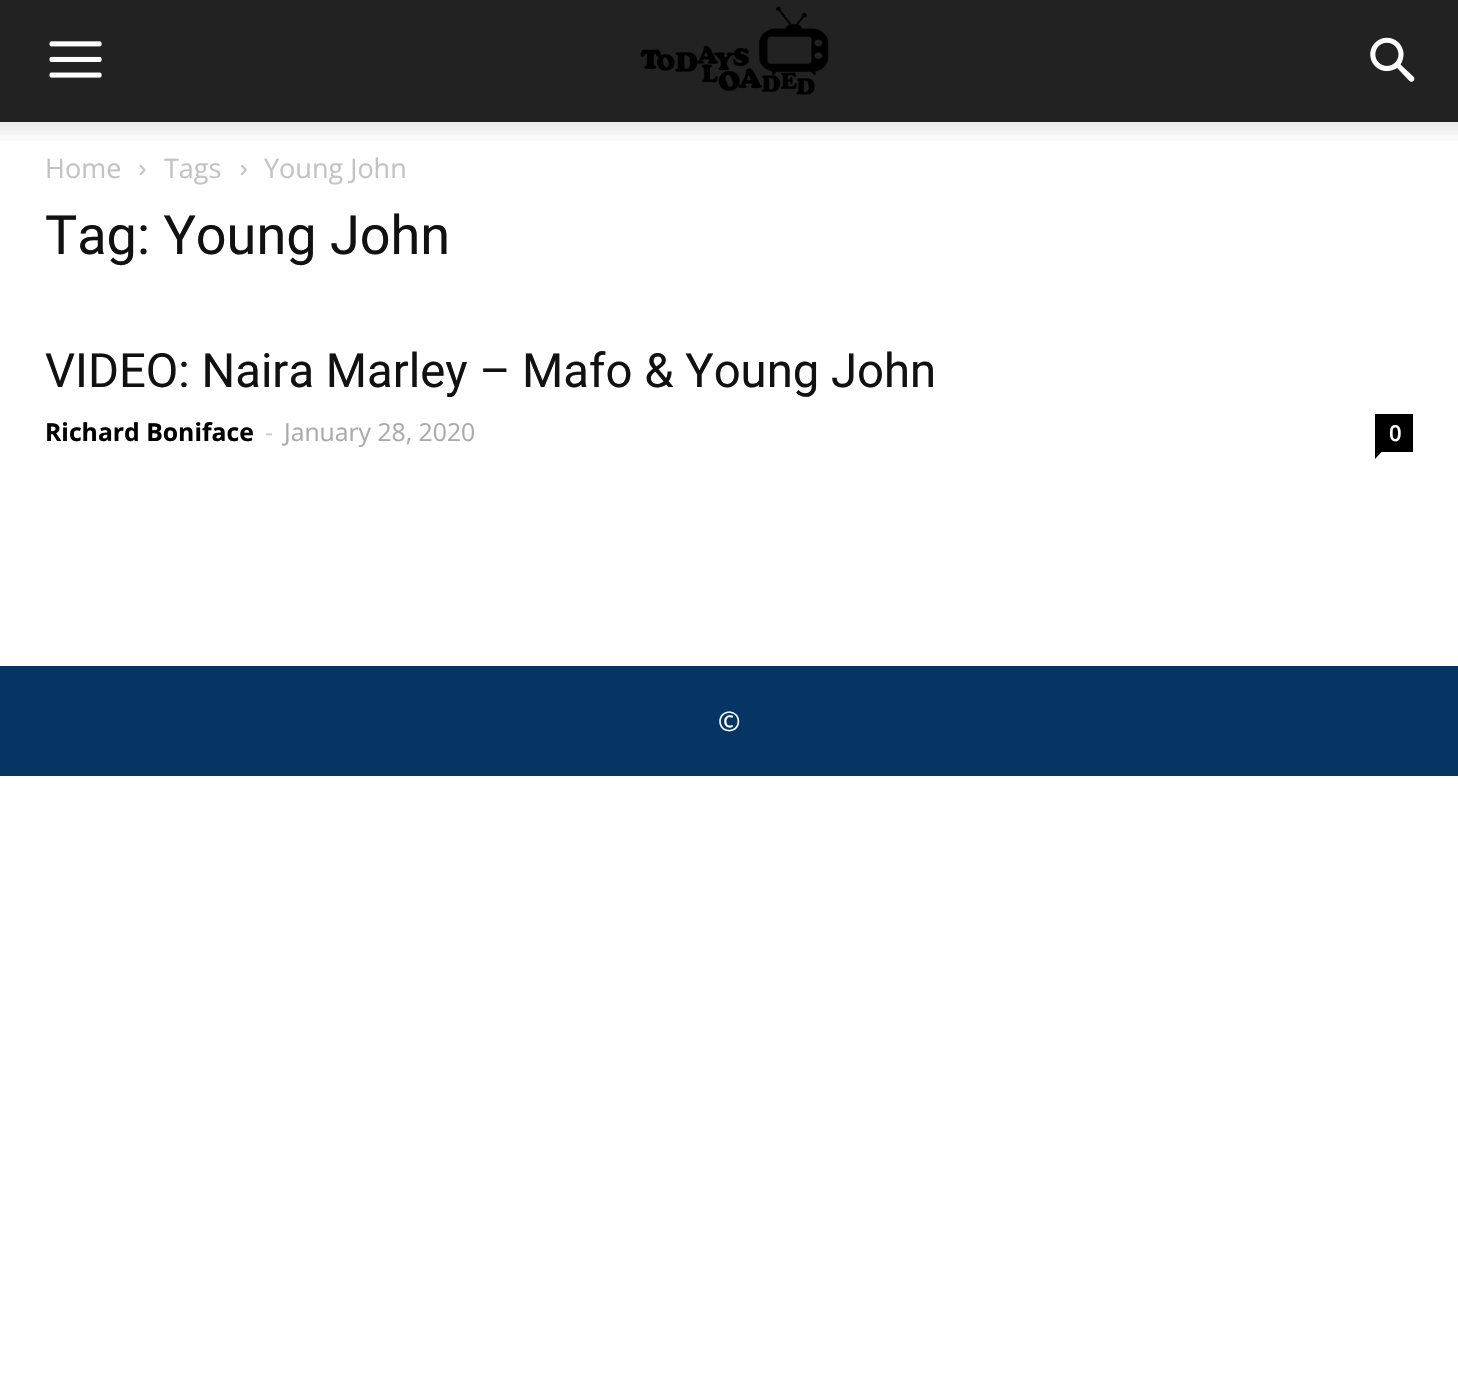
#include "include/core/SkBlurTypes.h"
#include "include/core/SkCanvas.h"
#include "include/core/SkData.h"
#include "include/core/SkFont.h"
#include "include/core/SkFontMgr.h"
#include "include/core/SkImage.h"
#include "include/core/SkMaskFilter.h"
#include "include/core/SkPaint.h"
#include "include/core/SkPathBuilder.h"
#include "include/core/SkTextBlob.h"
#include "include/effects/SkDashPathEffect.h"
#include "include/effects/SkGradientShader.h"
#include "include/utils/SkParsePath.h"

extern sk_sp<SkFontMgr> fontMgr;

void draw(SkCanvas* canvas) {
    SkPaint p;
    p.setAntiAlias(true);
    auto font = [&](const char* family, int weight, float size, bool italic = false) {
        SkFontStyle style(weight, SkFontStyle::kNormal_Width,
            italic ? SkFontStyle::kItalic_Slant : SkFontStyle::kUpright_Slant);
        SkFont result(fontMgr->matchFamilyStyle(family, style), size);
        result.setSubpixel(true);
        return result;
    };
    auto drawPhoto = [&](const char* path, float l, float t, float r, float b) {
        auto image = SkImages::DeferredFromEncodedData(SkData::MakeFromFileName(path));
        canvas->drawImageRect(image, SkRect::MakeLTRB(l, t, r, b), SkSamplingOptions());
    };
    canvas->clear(0xFFFFFFFF);
    p.setColor(0xFF222222);
    canvas->drawRect(SkRect::MakeLTRB(0, 0, 1458, 122), p);
    drawPhoto("media/1.png", 49, 41, 102, 78);
    drawPhoto("media/2.png", 640, 6, 829, 95);
    drawPhoto("media/3.png", 1370, 37, 1415, 82);
    drawPhoto("media/4.png", 0, 122, 1458, 141);
    auto font1 = font("Open Sans", 400, 27);
    p.setColor(0xFFC3C3C3);
    canvas->drawString("Home", 45, 178, font1, p);
    drawPhoto("media/5.png", 139, 164, 146, 176);
    canvas->drawString("Tags", 164, 178, font1, p);
    drawPhoto("media/6.png", 240, 164, 247, 176);
    canvas->drawString("Young John", 264, 178, font1, p);
    auto font2 = font("Roboto", 400, 54);
    p.setColor(0xFF111111);
    canvas->drawString("Tag: Young John", 45, 254, font2, p);
    auto font3 = font("Roboto", 400, 47.25f);
    canvas->drawString("VIDEO: Naira Marley – Mafo & Young John", 45, 387, font3, p);
    auto font4 = font("Open Sans", 700, 24.75f);
    p.setColor(0xFF000000);
    canvas->drawString("Richard Boniface", 45, 441, font4, p);
    auto font5 = font("Open Sans", 400, 24.75f);
    p.setColor(0xFFCCCCCC);
    canvas->drawString("-", 265, 441, font5, p);
    p.setColor(0xFFAAAAAA);
    canvas->drawString("January 28, 2020", 284, 441, font5, p);
    p.setColor(0xFF000000);
    canvas->drawRect(SkRect::MakeLTRB(1375, 414, 1413, 452), p);
    auto font6 = font("Open Sans", 600, 22);
    p.setColor(0xFFFFFFFF);
    canvas->drawString("0", 1389, 441, font6, p);
    p.setColor(0xFF000000);
    canvas->drawPath(SkPathBuilder().moveTo(1375, 452).lineTo(1381.5f, 452).lineTo(1375, 459).close().detach(), p);
    p.setColor(0xFF043565);
    canvas->drawRect(SkRect::MakeLTRB(0, 666, 1458, 776), p);
    p.setColor(0xFFFFFFFF);
    canvas->drawString("©", 718, 731, font1, p);
}
